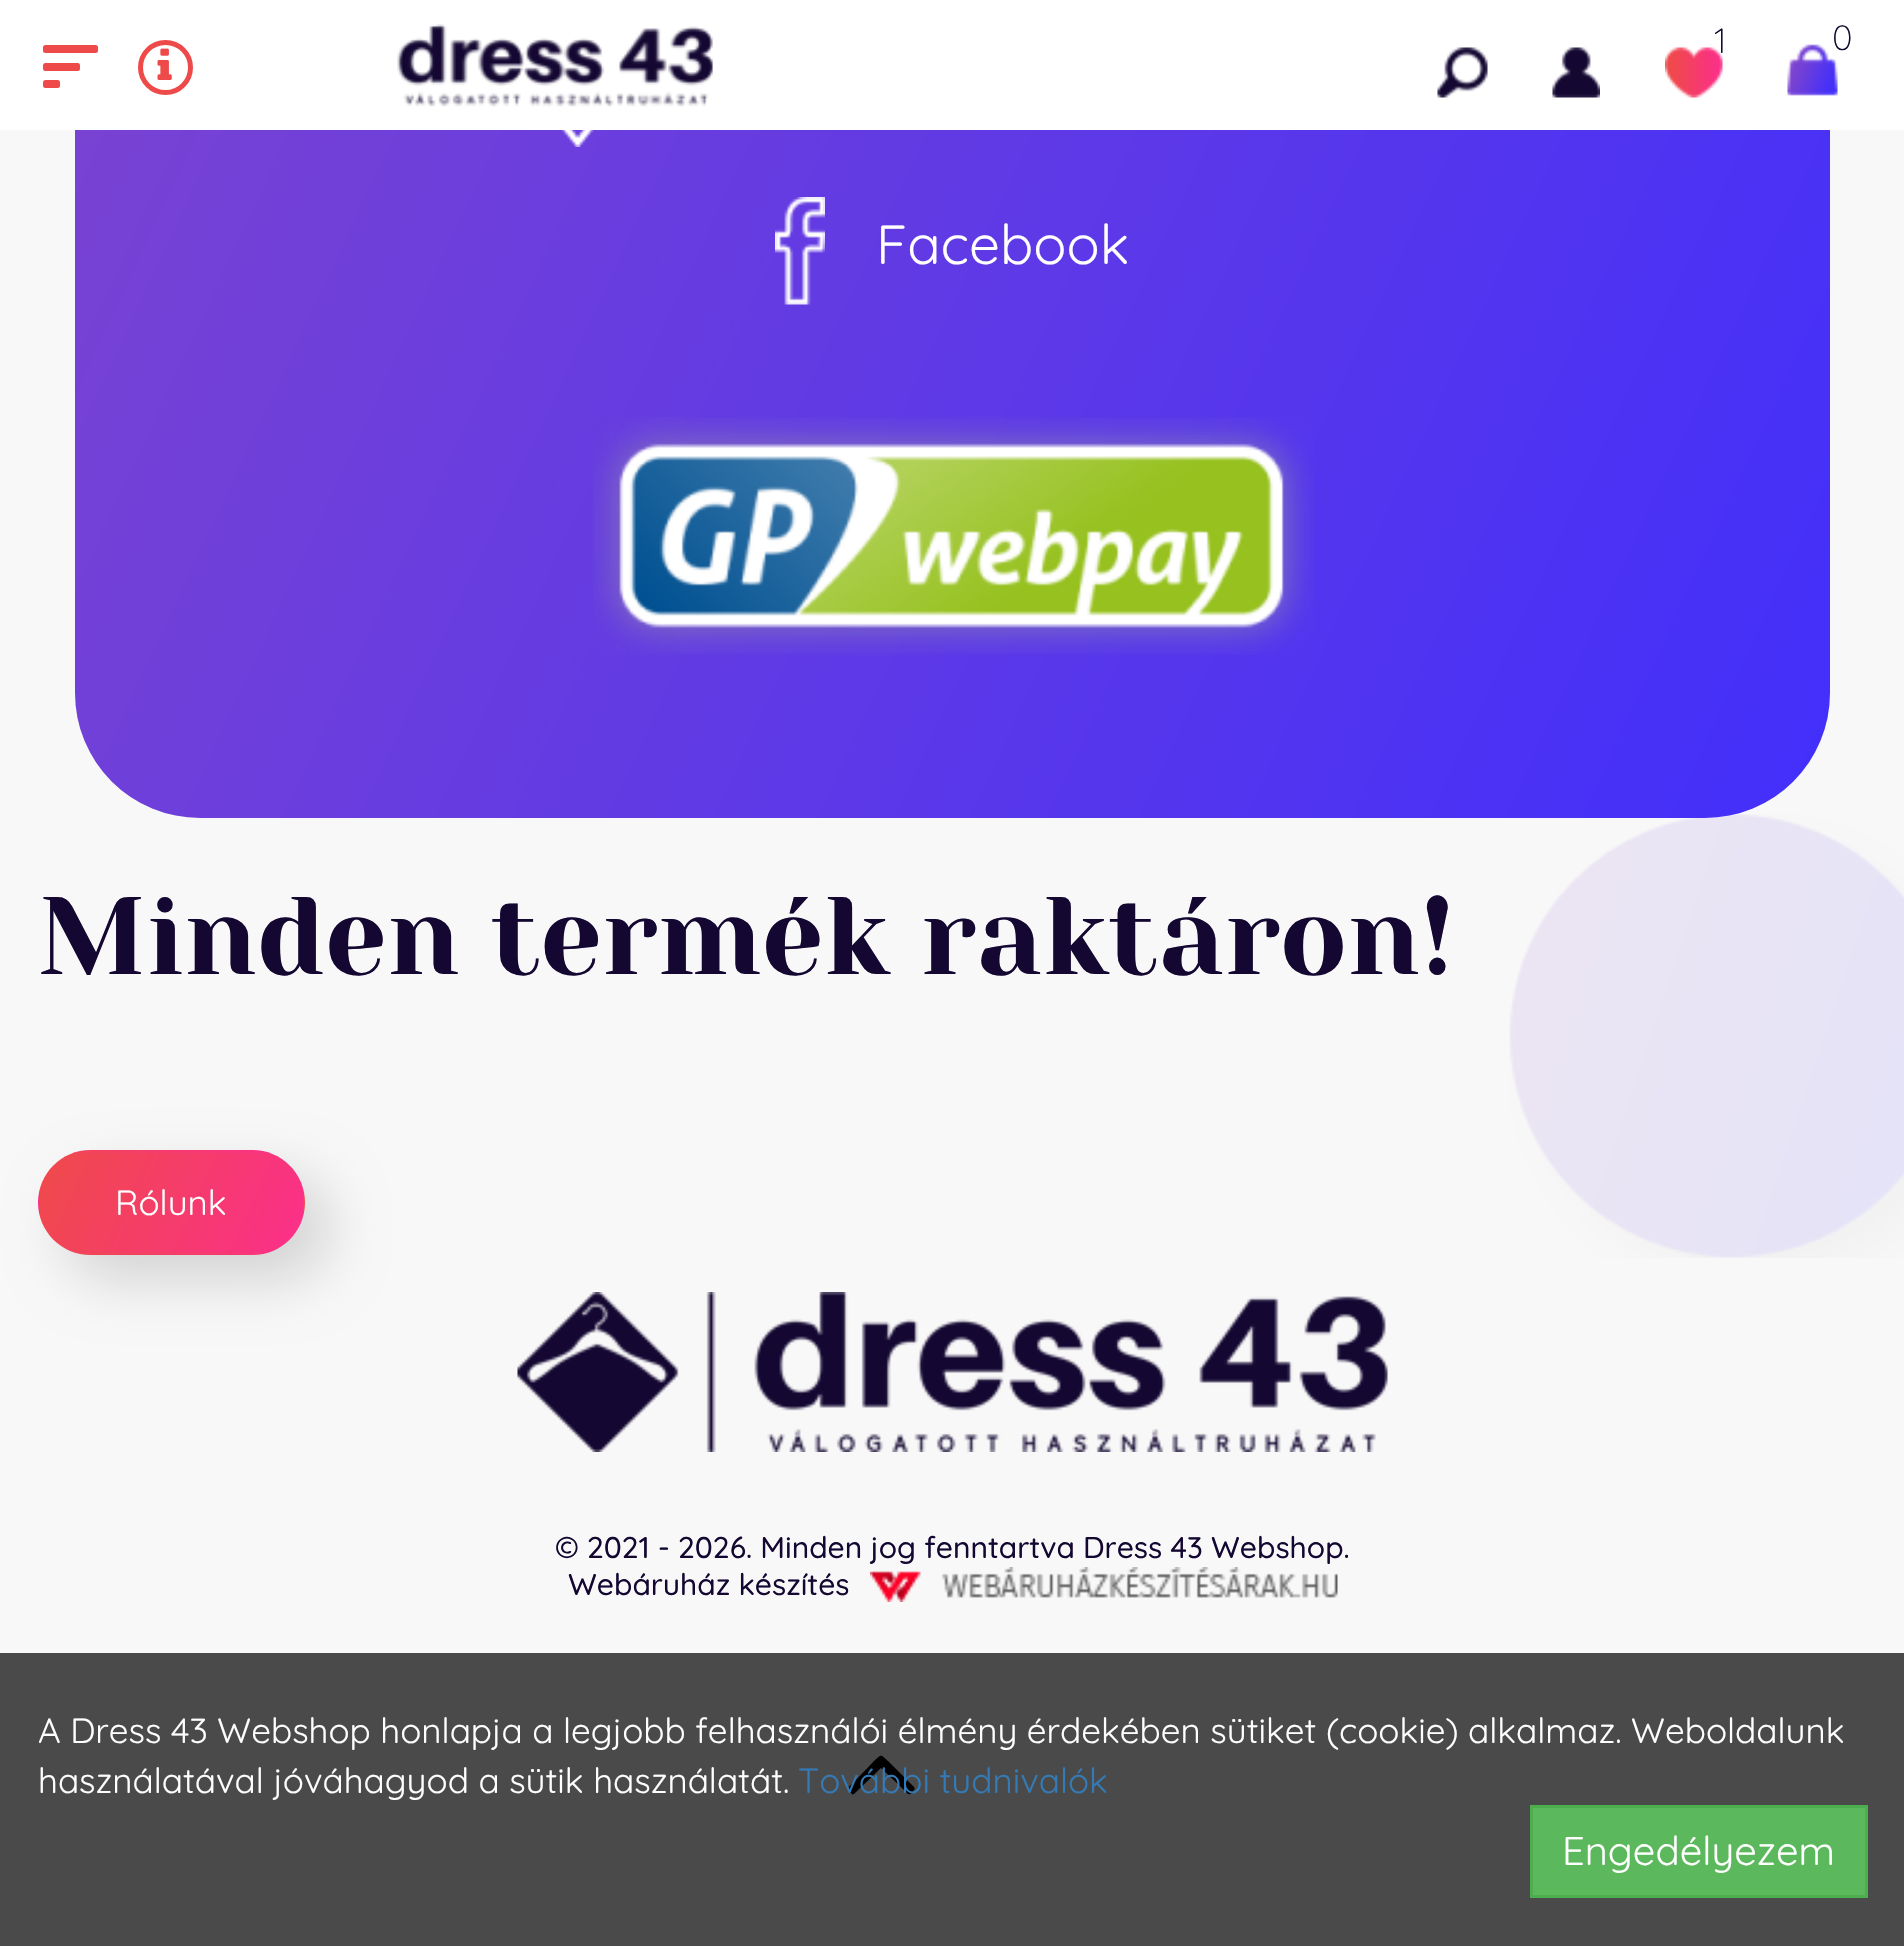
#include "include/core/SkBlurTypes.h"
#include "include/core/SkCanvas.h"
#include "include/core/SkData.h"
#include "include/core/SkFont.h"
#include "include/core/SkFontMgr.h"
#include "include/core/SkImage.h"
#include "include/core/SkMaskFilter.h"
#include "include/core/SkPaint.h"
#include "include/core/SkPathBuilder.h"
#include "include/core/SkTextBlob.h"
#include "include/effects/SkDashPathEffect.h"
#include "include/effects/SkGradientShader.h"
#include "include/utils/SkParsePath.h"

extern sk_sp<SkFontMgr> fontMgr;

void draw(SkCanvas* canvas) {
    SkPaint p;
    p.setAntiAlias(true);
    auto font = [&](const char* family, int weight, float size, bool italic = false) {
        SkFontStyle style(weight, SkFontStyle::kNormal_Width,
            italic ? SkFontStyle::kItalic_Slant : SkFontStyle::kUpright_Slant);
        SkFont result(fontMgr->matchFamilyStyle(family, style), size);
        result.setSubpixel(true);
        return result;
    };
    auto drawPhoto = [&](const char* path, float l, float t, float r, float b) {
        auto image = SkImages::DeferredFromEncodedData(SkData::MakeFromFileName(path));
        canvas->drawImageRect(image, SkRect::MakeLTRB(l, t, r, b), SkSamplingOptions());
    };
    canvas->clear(0xFFF8F8F8);
    p.setColor(0xFF4A4A4A);
    canvas->drawRect(SkRect::MakeLTRB(0, 1653, 1904, 1946), p);
    {
        const SkColor colors[] = {0xFF8246CC, 0xFF422FFB};
        const float stops[] = {0, 1};
        const SkPoint ends[] = {{-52, -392}, {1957, 545}};
        p.setShader(SkGradientShader::MakeLinear(ends, colors, stops, 2, SkTileMode::kClamp));
        p.setAlpha(255);
    }
    canvas->drawRoundRect(SkRect::MakeLTRB(75, -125, 1830, 818), 125, 125, p);
    p.setShader(nullptr);
    p.setColor(0xFFFFFFFF);
    canvas->drawRect(SkRect::MakeLTRB(0, 0, 1904, 130), p);
    p.setColor(0xFFEF4A4A);
    canvas->drawRoundRect(SkRect::MakeLTRB(43, 45, 98, 53), 2.5f, 2.5f, p);
    canvas->drawRoundRect(SkRect::MakeLTRB(43, 63, 80, 71), 2.5f, 2.5f, p);
    canvas->drawRoundRect(SkRect::MakeLTRB(43, 80, 60, 88), 2.5f, 2.5f, p);
    p.setStyle(SkPaint::kStroke_Style);
    p.setStrokeWidth(5);
    canvas->drawCircle(165.5f, 67.5f, 25, p);
    drawPhoto("media/1.png", 157, 48, 172, 80);
    drawPhoto("media/2.png", 397, 24, 713, 107);
    drawPhoto("media/3.png", 1665, 47, 1723, 98);
    auto font1 = font("Quicksand", 300, 35);
    p.setStyle(SkPaint::kFill_Style);
    p.setColor(0xFF140832);
    canvas->drawString("1", 1714, 53, font1, p);
    drawPhoto("media/4.png", 1787, 44, 1838, 96);
    canvas->drawString("0", 1832, 50, font1, p);
    drawPhoto("media/5.png", 1437, 47, 1488, 98);
    drawPhoto("media/6.png", 1552, 47, 1600, 98);
    drawPhoto("media/7.png", 561, 130, 594, 147);
    drawPhoto("media/8.png", 775, 197, 825, 305);
    auto font2 = font("Quicksand", 400, 55);
    p.setColor(0xFFFFFFFF);
    canvas->drawString("Facebook", 876, 264, font2, p);
    drawPhoto("media/9.png", 593, 417, 1315, 655);
    drawPhoto("media/10.png", 1509, 814, 1904, 1258);
    auto font3 = font("Yeseva One", 400, 110);
    p.setColor(0xFF140832);
    canvas->drawString("Minden termék raktáron!", 38, 974, font3, p);
    p.setColor(0x26000000);
    p.setMaskFilter(SkMaskFilter::MakeBlur(kNormal_SkBlurStyle, 27.5f));
    canvas->drawRoundRect(SkRect::MakeLTRB(63, 1175, 330, 1280), 52.5f, 52.5f, p);
    p.setMaskFilter(nullptr);
    canvas->save();
    canvas->clipPath(SkPathBuilder().moveTo(90.5f, 1150).lineTo(252.5f, 1150).cubicTo(281.5f, 1150, 305, 1173.5f, 305, 1202.5f).cubicTo(305, 1231.5f, 281.5f, 1255, 252.5f, 1255).lineTo(90.5f, 1255).cubicTo(61.5f, 1255, 38, 1231.5f, 38, 1202.5f).cubicTo(38, 1173.5f, 61.5f, 1150, 90.5f, 1150).close().detach(), true);
    {
        const SkColor colors[] = {0xFFEF4A4A, 0xFFFB2F8A};
        const float stops[] = {0, 1};
        const SkPoint ends[] = {{44, 1043}, {298, 1162}};
        p.setShader(SkGradientShader::MakeLinear(ends, colors, stops, 2, SkTileMode::kClamp));
        p.setAlpha(255);
    }
    canvas->drawRect(SkRect::MakeLTRB(73, 1150, 270, 1153), p);
    {
        const SkColor colors[] = {0xFFEF4A4A, 0xFFFB2F8A};
        const float stops[] = {0, 1};
        const SkPoint ends[] = {{-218, 1143}, {36, 1262}};
        p.setShader(SkGradientShader::MakeLinear(ends, colors, stops, 2, SkTileMode::kClamp));
        p.setAlpha(255);
    }
    canvas->drawRect(SkRect::MakeLTRB(38, 1188, 40, 1217), p);
    {
        const SkColor colors[] = {0xFFEF4A4A, 0xFFFB2F8A};
        const float stops[] = {0, 1};
        const SkPoint ends[] = {{44, 1143}, {298, 1262}};
        p.setShader(SkGradientShader::MakeLinear(ends, colors, stops, 2, SkTileMode::kClamp));
        p.setAlpha(255);
    }
    canvas->drawRect(SkRect::MakeLTRB(40, 1153, 303, 1253), p);
    {
        const SkColor colors[] = {0xFFEF4A4A, 0xFFFB2F8A};
        const float stops[] = {0, 1};
        const SkPoint ends[] = {{307, 1143}, {561, 1262}};
        p.setShader(SkGradientShader::MakeLinear(ends, colors, stops, 2, SkTileMode::kClamp));
        p.setAlpha(255);
    }
    canvas->drawRect(SkRect::MakeLTRB(303, 1188, 305, 1217), p);
    {
        const SkColor colors[] = {0xFFEF4A4A, 0xFFFB2F8A};
        const float stops[] = {0, 1};
        const SkPoint ends[] = {{44, 1243}, {298, 1362}};
        p.setShader(SkGradientShader::MakeLinear(ends, colors, stops, 2, SkTileMode::kClamp));
        p.setAlpha(255);
    }
    canvas->drawRect(SkRect::MakeLTRB(76, 1253, 267, 1255), p);
    canvas->restore();
    auto font4 = font("Quicksand", 400, 35);
    p.setShader(nullptr);
    p.setColor(0xFFFFFFFF);
    canvas->drawString("Rólunk", 115, 1215, font4, p);
    drawPhoto("media/11.png", 517, 1292, 1388, 1452);
    auto font5 = font("Quicksand", 500, 30);
    p.setColor(0xFF140832);
    canvas->drawString("© 2021 - 2026. Minden jog fenntartva Dress 43 Webshop.", 555, 1558, font5, p);
    canvas->drawString("Webáruház készítés", 568, 1595, font5, p);
    drawPhoto("media/12.png", 870, 1567, 1338, 1602);
    p.setColor(0xFF000000);
    canvas->drawPath(SkPathBuilder().moveTo(914, 1787).cubicTo(916, 1789, 913, 1791, 912, 1793).cubicTo(908, 1796, 907, 1793, 903, 1789).lineTo(881, 1768).lineTo(854, 1794).cubicTo(853, 1795, 852, 1794, 851, 1793).cubicTo(845, 1788, 848, 1788, 854, 1782).lineTo(874, 1761).cubicTo(882, 1754, 880, 1754, 888, 1761).close().detach(), p);
    p.setColor(0xFFFFFFFF);
    canvas->drawString("A Dress 43 Webshop honlapja a legjobb felhasználói élmény érdekében sütiket (cookie) alkalmaz. Weboldalunk", 38, 1743, font4, p);
    canvas->drawString("használatával jóváhagyod a sütik használatát.", 38, 1793, font4, p);
    p.setColor(0xFF337AB7);
    canvas->drawString("További tudnivalók", 798, 1793, font4, p);
    p.setColor(0xFF5CB85C);
    canvas->drawRect(SkRect::MakeLTRB(1531.5f, 1806.5f, 1866.5f, 1896.5f), p);
    p.setStyle(SkPaint::kStroke_Style);
    p.setStrokeWidth(3);
    p.setColor(0xFF4CAE4C);
    canvas->drawRect(SkRect::MakeLTRB(1531.5f, 1806.5f, 1866.5f, 1896.5f), p);
    auto font6 = font("Quicksand", 400, 40);
    p.setStyle(SkPaint::kFill_Style);
    p.setColor(0xFFFFFFFF);
    canvas->drawString("Engedélyezem", 1562, 1865, font6, p);
}
